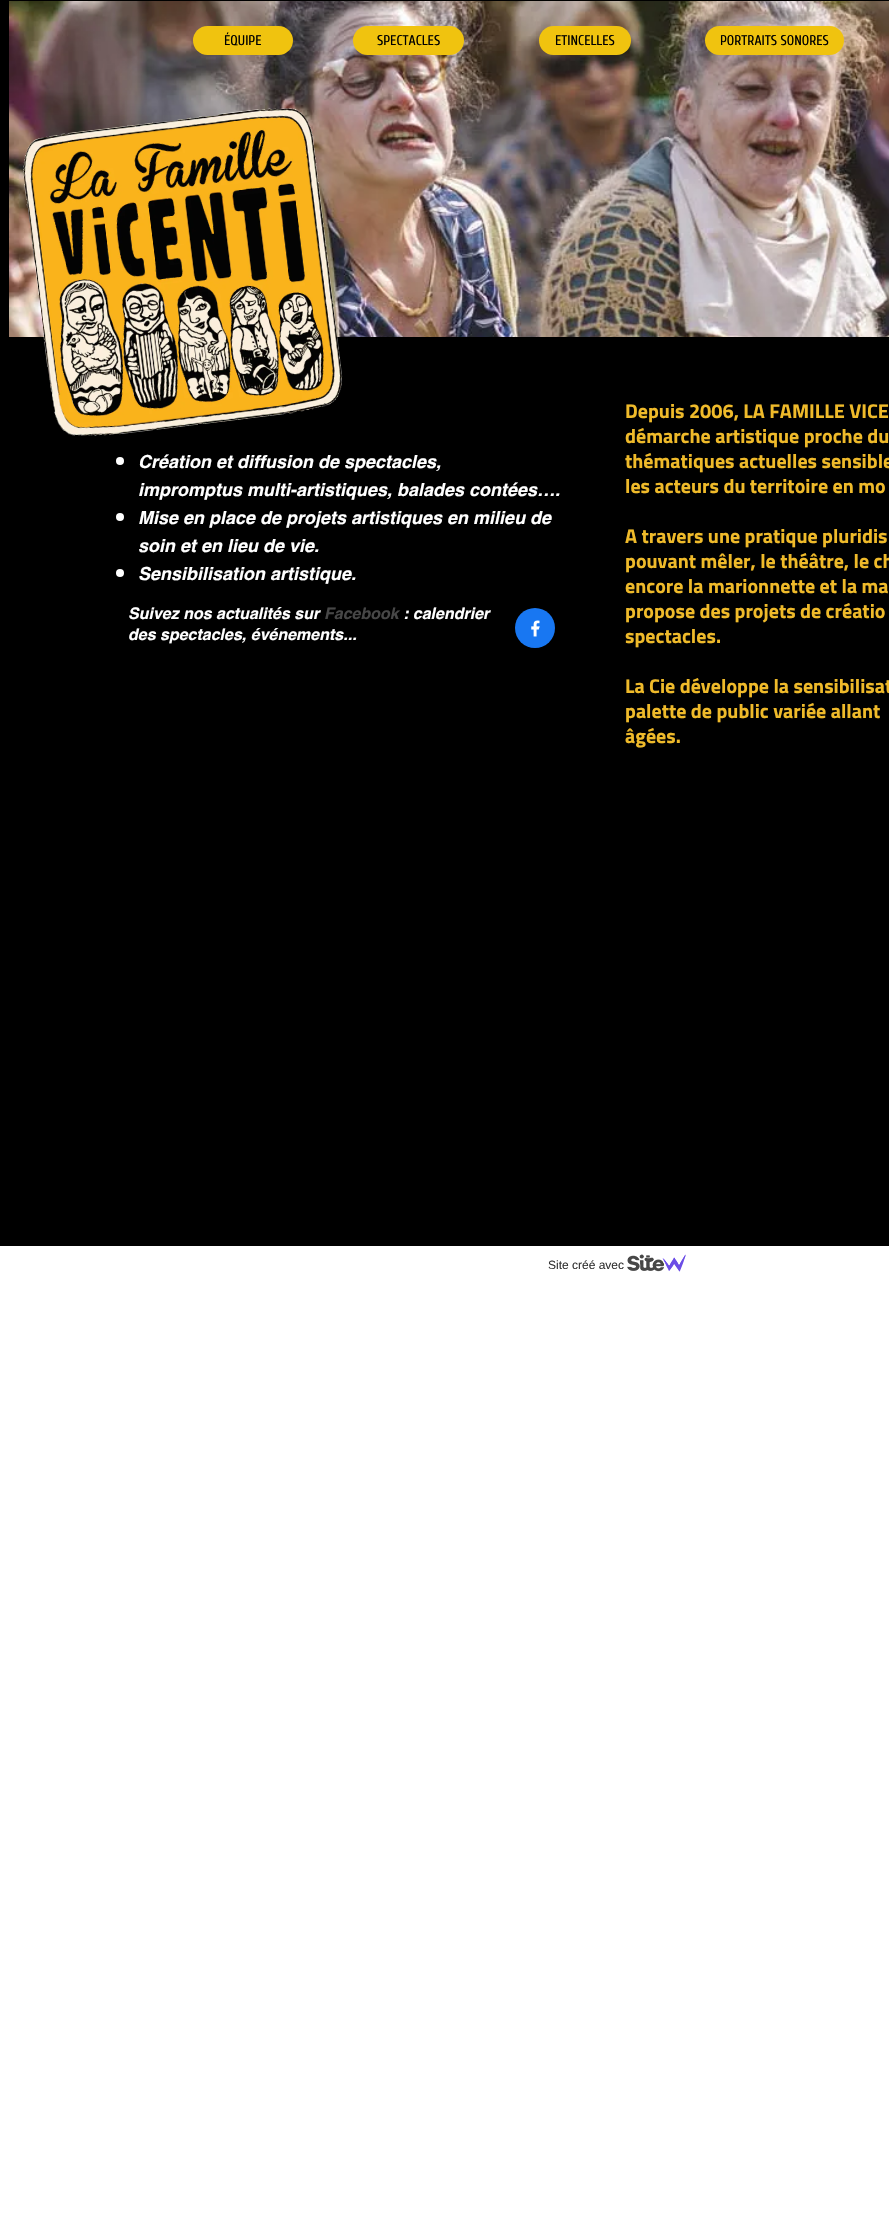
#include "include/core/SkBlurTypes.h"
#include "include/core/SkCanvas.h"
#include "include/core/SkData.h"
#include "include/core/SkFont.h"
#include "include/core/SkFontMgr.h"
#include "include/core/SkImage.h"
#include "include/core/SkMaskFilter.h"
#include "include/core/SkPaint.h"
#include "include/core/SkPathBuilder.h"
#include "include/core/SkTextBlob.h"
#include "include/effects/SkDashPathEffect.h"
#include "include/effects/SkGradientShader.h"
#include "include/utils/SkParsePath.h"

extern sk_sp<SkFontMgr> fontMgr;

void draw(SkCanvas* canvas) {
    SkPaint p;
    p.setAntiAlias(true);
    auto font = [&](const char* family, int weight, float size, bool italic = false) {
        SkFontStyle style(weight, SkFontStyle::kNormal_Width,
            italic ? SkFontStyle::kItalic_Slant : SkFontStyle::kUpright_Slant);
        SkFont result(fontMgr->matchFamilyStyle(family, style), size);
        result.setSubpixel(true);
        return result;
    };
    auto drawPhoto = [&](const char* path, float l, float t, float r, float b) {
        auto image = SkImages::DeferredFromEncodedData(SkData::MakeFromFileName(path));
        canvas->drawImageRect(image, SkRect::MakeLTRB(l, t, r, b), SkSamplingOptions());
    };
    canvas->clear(0xFFFFFFFF);
    p.setColor(0xFF000000);
    canvas->drawRect(SkRect::MakeLTRB(0, 0, 889, 1246), p);
    drawPhoto("media/1.png", 9, 1, 889, 337);
    p.setColor(0xFFF0C30F);
    canvas->drawRoundRect(SkRect::MakeLTRB(193, 26, 293, 55), 14.5f, 14.5f, p);
    auto font1 = font("Cuprum", 400, 14);
    p.setColor(0xFF000000);
    canvas->drawString("ÉQUIPE", 224, 45, font1, p);
    p.setColor(0xFFF0C30F);
    canvas->drawRoundRect(SkRect::MakeLTRB(353, 26, 464, 55), 14.5f, 14.5f, p);
    p.setColor(0xFF000000);
    canvas->drawString("SPECTACLES", 377, 45, font1, p);
    p.setColor(0xFFF0C30F);
    canvas->drawRoundRect(SkRect::MakeLTRB(539, 26, 631, 55), 14.5f, 14.5f, p);
    p.setColor(0xFF000000);
    canvas->drawString("ETINCELLES", 555, 45, font1, p);
    p.setColor(0xFFF0C30F);
    canvas->drawRoundRect(SkRect::MakeLTRB(705, 26, 844, 55), 14.5f, 14.5f, p);
    p.setColor(0xFF000000);
    canvas->drawString("PORTRAITS SONORES", 720, 45, font1, p);
    drawPhoto("media/2.png", 23, 108, 343, 436);
    p.setColor(0xFFFFFFFF);
    canvas->drawCircle(120, 461, 4, p);
    auto font2 = font("Helvetica", 700, 18, true);
    canvas->drawString("Création et diffusion de spectacles,", 138, 468, font2, p);
    canvas->drawString("impromptus multi-artistiques, balades contées….", 138, 496, font2, p);
    canvas->drawCircle(120, 517, 4, p);
    canvas->drawString("Mise en place de projets artistiques en milieu de", 138, 524, font2, p);
    canvas->drawString("soin et en lieu de vie.", 138, 552, font2, p);
    canvas->drawCircle(120, 573, 4, p);
    canvas->drawString("Sensibilisation artistique.", 138, 580, font2, p);
    auto font3 = font("Titillium Web", 700, 20);
    p.setColor(0xFFEFBA2A);
    {
        const struct { const char* s; float x, y; } items[] = {
            {"Depuis 2006, LA FAMILLE VICE", 625, 418},
            {"démarche artistique proche du", 625, 443},
            {"thématiques actuelles sensible", 625, 468},
            {"les acteurs du territoire en mo", 625, 493},
            {"A travers une pratique pluridis", 625, 543},
            {"pouvant mêler, le théâtre, le ch", 625, 568},
            {"encore la marionnette et la ma", 625, 593},
            {"propose des projets de créatio", 625, 618},
            {"spectacles.", 625, 643},
            {"La Cie développe la sensibilisat", 625, 693},
            {"palette de public variée allant", 625, 718},
            {"âgées.", 625, 743},
        };
        for (auto [s, x, y] : items) {
            canvas->drawString(s, x, y, font3, p);
        }
    }
    auto font4 = font("Helvetica", 700, 16, true);
    p.setColor(0xFFFFFFFF);
    canvas->drawString("Suivez nos actualités sur", 128, 619, font4, p);
    p.setColor(0xFF474747);
    canvas->drawString("Facebook", 324, 619, font4, p);
    p.setColor(0xFFFFFFFF);
    canvas->drawString(": calendrier", 403, 619, font4, p);
    canvas->drawString("des spectacles, événements...", 128, 640, font4, p);
    p.setColor(0xFF1877F2);
    canvas->drawCircle(535, 628, 20, p);
    drawPhoto("media/3.png", 531, 620, 540, 637);
    auto font5 = font("Liberation Sans", 400, 12);
    p.setColor(0xFF333333);
    canvas->drawString("Site créé avec", 548, 1269, font5, p);
    drawPhoto("media/4.png", 627, 1254, 686, 1272);
}
